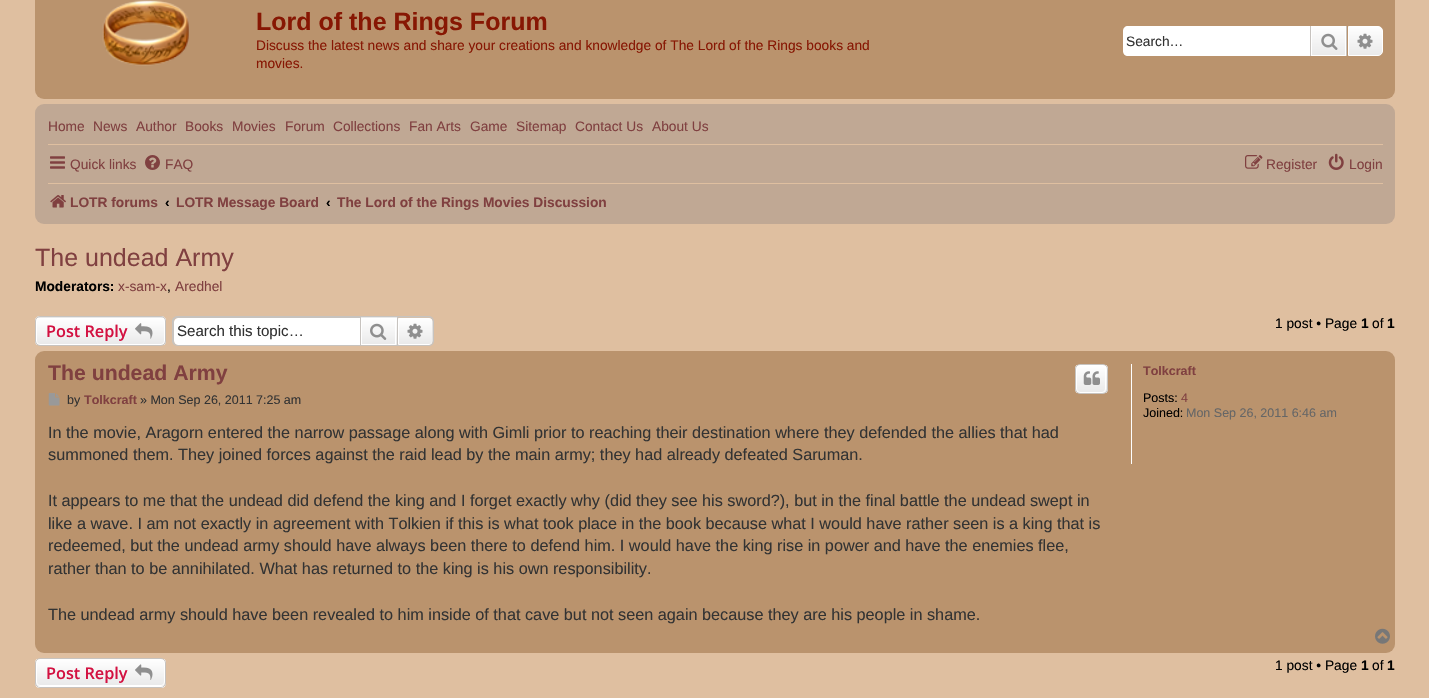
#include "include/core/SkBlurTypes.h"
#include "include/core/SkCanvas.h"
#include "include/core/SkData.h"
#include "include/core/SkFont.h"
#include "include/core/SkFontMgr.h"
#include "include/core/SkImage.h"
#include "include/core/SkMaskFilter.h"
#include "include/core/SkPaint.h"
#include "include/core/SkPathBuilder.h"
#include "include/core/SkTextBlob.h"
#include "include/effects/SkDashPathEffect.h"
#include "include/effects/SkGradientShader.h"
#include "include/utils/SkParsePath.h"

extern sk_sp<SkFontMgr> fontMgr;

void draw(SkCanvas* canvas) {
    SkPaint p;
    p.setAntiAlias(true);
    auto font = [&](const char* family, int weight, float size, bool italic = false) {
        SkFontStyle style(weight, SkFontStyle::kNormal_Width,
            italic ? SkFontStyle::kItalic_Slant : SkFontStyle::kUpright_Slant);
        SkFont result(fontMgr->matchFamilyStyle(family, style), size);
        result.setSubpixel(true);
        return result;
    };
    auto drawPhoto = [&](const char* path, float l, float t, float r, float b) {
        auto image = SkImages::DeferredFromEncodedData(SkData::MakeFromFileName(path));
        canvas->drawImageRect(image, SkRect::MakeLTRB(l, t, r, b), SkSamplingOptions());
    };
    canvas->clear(0xFFDFBFA0);
    p.setColor(0xFFBA936D);
    canvas->drawRoundRect(SkRect::MakeLTRB(35, -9, 1395, 99), 9, 9, p);
    drawPhoto("media/1.png", 102, 0, 189, 66);
    auto font1 = font("Liberation Sans", 700, 25);
    p.setColor(0xFF871703);
    canvas->drawString("Lord of the Rings Forum", 256, 30, font1, p);
    auto font2 = font("Liberation Sans", 400, 13.75f);
    canvas->drawString("Discuss the latest news and share your creations and knowledge of The Lord of the Rings books and", 256, 50, font2, p);
    canvas->drawString("movies.", 256, 68, font2, p);
    p.setColor(0xFFFFFFFF);
    canvas->drawPath(SkPathBuilder().moveTo(1128, 26).lineTo(1310, 26).lineTo(1310, 56).lineTo(1128, 56).cubicTo(1125, 56, 1123, 54, 1123, 51).lineTo(1123, 31).cubicTo(1123, 28, 1125, 26, 1128, 26).close().detach(), p);
    p.setColor(0xFF333333);
    canvas->drawString("Search…", 1126, 46, font2, p);
    {
        const SkColor colors[] = {0xFFFFFFFF, 0xFFE9E9E9};
        const float stops[] = {0, 1};
        const SkPoint ends[] = {{1329, 26}, {1329, 56}};
        p.setShader(SkGradientShader::MakeLinear(ends, colors, stops, 2, SkTileMode::kClamp));
        p.setAlpha(255);
    }
    canvas->drawRect(SkRect::MakeLTRB(1312, 27, 1345, 55), p);
    p.setStyle(SkPaint::kStroke_Style);
    p.setStrokeWidth(1);
    p.setShader(nullptr);
    p.setColor(0xFFFFFFFF);
    canvas->drawRect(SkRect::MakeLTRB(1311.5f, 26.5f, 1345.5f, 55.5f), p);
    p.setStyle(SkPaint::kFill_Style);
    p.setColor(0xFFC7C3BF);
    canvas->drawRect(SkRect::MakeLTRB(1346, 26, 1347, 56), p);
    canvas->drawRect(SkRect::MakeLTRB(1310, 26, 1311, 56), p);
    drawPhoto("media/2.png", 1321, 33, 1338, 50);
    {
        const SkColor colors[] = {0xFFFFFFFF, 0xFFE9E9E9};
        const float stops[] = {0, 1};
        const SkPoint ends[] = {{1365, 26}, {1365, 56}};
        p.setShader(SkGradientShader::MakeLinear(ends, colors, stops, 2, SkTileMode::kClamp));
        p.setAlpha(255);
    }
    canvas->drawPath(SkPathBuilder().moveTo(1348.5f, 26.5f).lineTo(1378, 26.5f).cubicTo(1380.5f, 26.5f, 1382.5f, 28.5f, 1382.5f, 31).lineTo(1382.5f, 51).cubicTo(1382.5f, 53.5f, 1380.5f, 55.5f, 1378, 55.5f).lineTo(1348.5f, 55.5f).close().detach(), p);
    p.setStyle(SkPaint::kStroke_Style);
    p.setShader(nullptr);
    p.setColor(0xFFFFFFFF);
    canvas->drawPath(SkPathBuilder().moveTo(1348.5f, 26.5f).lineTo(1378, 26.5f).cubicTo(1380.5f, 26.5f, 1382.5f, 28.5f, 1382.5f, 31).lineTo(1382.5f, 51).cubicTo(1382.5f, 53.5f, 1380.5f, 55.5f, 1378, 55.5f).lineTo(1348.5f, 55.5f).close().detach(), p);
    drawPhoto("media/3.png", 1357, 33, 1373, 49);
    p.setStyle(SkPaint::kFill_Style);
    p.setColor(0xFFC0A894);
    canvas->drawRoundRect(SkRect::MakeLTRB(35, 104, 1395, 224), 9, 9, p);
    p.setColor(0xFF804040);
    {
        const struct { const char* s; float x, y; } items[] = {
            {"Home", 48, 131},
            {"News", 93, 131},
            {"Author", 136, 131},
            {"Books", 185, 131},
            {"Movies", 232, 131},
            {"Forum", 285, 131},
            {"Collections", 333, 131},
            {"Fan Arts", 409, 131},
            {"Game", 470, 131},
            {"Sitemap", 516, 131},
            {"Contact Us", 575, 131},
            {"About Us", 652, 131},
        };
        for (auto [s, x, y] : items) {
            canvas->drawString(s, x, y, font2, p);
        }
    }
    p.setColor(0xFFDFBFA0);
    canvas->drawRect(SkRect::MakeLTRB(48, 144, 1383, 145), p);
    drawPhoto("media/4.png", 50, 156, 65, 169);
    p.setColor(0xFF804040);
    canvas->drawString("Quick links", 70, 169, font2, p);
    drawPhoto("media/5.png", 145, 155, 160, 170);
    canvas->drawString("FAQ", 165, 169, font2, p);
    drawPhoto("media/6.png", 1245, 155, 1263, 169);
    canvas->drawString("Register", 1266, 169, font2, p);
    drawPhoto("media/7.png", 1328, 153, 1344, 170);
    canvas->drawString("Login", 1349, 169, font2, p);
    p.setColor(0xFFDFBFA0);
    canvas->drawRect(SkRect::MakeLTRB(48, 183, 1383, 184), p);
    drawPhoto("media/8.png", 50, 195, 66, 208);
    auto font3 = font("Liberation Sans", 700, 13.75f);
    p.setColor(0xFF804040);
    canvas->drawString("LOTR forums", 70, 207, font3, p);
    p.setColor(0xFF000000);
    canvas->drawString("‹", 165, 207, font3, p);
    p.setColor(0xFF804040);
    canvas->drawString("LOTR Message Board", 176, 207, font3, p);
    p.setColor(0xFF000000);
    canvas->drawString("‹", 326, 207, font3, p);
    p.setColor(0xFF804040);
    canvas->drawString("The Lord of the Rings Movies Discussion", 337, 207, font3, p);
    auto font4 = font("Liberation Sans", 400, 25);
    canvas->drawString("The undead Army", 35, 266, font4, p);
    p.setColor(0xFF000000);
    canvas->drawString("Moderators:", 35, 291, font3, p);
    p.setColor(0xFF804040);
    canvas->drawString("x-sam-x", 118, 291, font2, p);
    p.setColor(0xFF000000);
    canvas->drawString(",", 167, 291, font2, p);
    p.setColor(0xFF804040);
    canvas->drawString("Aredhel", 175, 291, font2, p);
    canvas->save();
    canvas->clipPath(SkPathBuilder().moveTo(40, 316).lineTo(161, 316).cubicTo(164, 316, 166, 318, 166, 321).lineTo(166, 341).cubicTo(166, 344, 164, 346, 161, 346).lineTo(40, 346).cubicTo(37, 346, 35, 344, 35, 341).lineTo(35, 321).cubicTo(35, 318, 37, 316, 40, 316).close().detach(), true);
    {
        const SkColor colors[] = {0xFFFFFFFF, 0xFFE9E9E9};
        const float stops[] = {0, 1};
        const SkPoint ends[] = {{101, 290}, {101, 318}};
        p.setShader(SkGradientShader::MakeLinear(ends, colors, stops, 2, SkTileMode::kClamp));
        p.setAlpha(255);
    }
    canvas->drawRect(SkRect::MakeLTRB(35, 316, 166, 318), p);
    {
        const SkColor colors[] = {0xFFFFFFFF, 0xFFE9E9E9};
        const float stops[] = {0, 1};
        const SkPoint ends[] = {{101, 318}, {101, 345}};
        p.setShader(SkGradientShader::MakeLinear(ends, colors, stops, 2, SkTileMode::kClamp));
        p.setAlpha(255);
    }
    canvas->drawRect(SkRect::MakeLTRB(35, 318, 166, 345), p);
    canvas->restore();
    p.setStyle(SkPaint::kStroke_Style);
    p.setShader(nullptr);
    p.setColor(0xFFFFFFFF);
    canvas->drawRoundRect(SkRect::MakeLTRB(36.5f, 318.5f, 164.5f, 344.5f), 3.5f, 3.5f, p);
    p.setColor(0xFFC7C3BF);
    canvas->drawRoundRect(SkRect::MakeLTRB(35.5f, 316.5f, 165.5f, 345.5f), 4.5f, 4.5f, p);
    auto font5 = font("Open Sans", 600, 16.25f);
    p.setStyle(SkPaint::kFill_Style);
    p.setColor(0xFFD31141);
    canvas->drawString("Post Reply", 46, 337, font5, p);
    drawPhoto("media/9.png", 135, 323, 153, 339);
    p.setColor(0xFFFFFFFF);
    canvas->drawPath(SkPathBuilder().moveTo(178, 318).lineTo(360, 318).lineTo(360, 345).lineTo(178, 345).cubicTo(176, 345, 174, 343, 174, 341).lineTo(174, 322).cubicTo(174, 320, 176, 318, 178, 318).close().detach(), p);
    p.setColor(0xFFC7C3BF);
    canvas->drawPath(SkPathBuilder(SkPathFillType::kEvenOdd).moveTo(178, 316).lineTo(360, 316).lineTo(360, 346).lineTo(178, 346).cubicTo(175, 346, 172, 344, 172, 341).lineTo(172, 321).cubicTo(172, 318, 175, 316, 178, 316).close().moveTo(178, 318).lineTo(360, 318).lineTo(360, 345).lineTo(178, 345).cubicTo(175, 345, 174, 343, 174, 341).lineTo(174, 321).cubicTo(174, 319, 175, 318, 178, 318).close().detach(), p);
    auto font6 = font("Liberation Sans", 400, 15.1f);
    p.setColor(0xFF333333);
    canvas->drawString("Search this topic…", 177, 336, font6, p);
    p.setColor(0xFFE9E9E9);
    canvas->drawRect(SkRect::MakeLTRB(361, 317, 397, 318), p);
    {
        const SkColor colors[] = {0xFFFFFFFF, 0xFFE9E9E9};
        const float stops[] = {0, 1};
        const SkPoint ends[] = {{379, 318}, {379, 345}};
        p.setShader(SkGradientShader::MakeLinear(ends, colors, stops, 2, SkTileMode::kClamp));
        p.setAlpha(255);
    }
    canvas->drawRect(SkRect::MakeLTRB(362, 318, 397, 345), p);
    p.setStyle(SkPaint::kStroke_Style);
    p.setShader(nullptr);
    p.setColor(0xFFFFFFFF);
    canvas->drawRect(SkRect::MakeLTRB(361.5f, 318.5f, 395.5f, 344.5f), p);
    p.setColor(0xFFC7C3BF);
    canvas->drawRect(SkRect::MakeLTRB(360.5f, 316.5f, 397.5f, 345.5f), p);
    drawPhoto("media/10.png", 370, 323, 387, 340);
    p.setStyle(SkPaint::kFill_Style);
    {
        const SkColor colors[] = {0xFFFFFFFF, 0xFFE9E9E9};
        const float stops[] = {0, 1};
        const SkPoint ends[] = {{415, 318}, {415, 345}};
        p.setShader(SkGradientShader::MakeLinear(ends, colors, stops, 2, SkTileMode::kClamp));
        p.setAlpha(255);
    }
    canvas->drawPath(SkPathBuilder().moveTo(398.5f, 318.5f).lineTo(429, 318.5f).cubicTo(431, 318.5f, 432.5f, 320, 432.5f, 322).lineTo(432.5f, 341).cubicTo(432.5f, 343, 431, 344.5f, 429, 344.5f).lineTo(398.5f, 344.5f).close().detach(), p);
    p.setStyle(SkPaint::kStroke_Style);
    p.setShader(nullptr);
    p.setColor(0xFFFFFFFF);
    canvas->drawPath(SkPathBuilder().moveTo(398.5f, 318.5f).lineTo(429, 318.5f).cubicTo(431, 318.5f, 432.5f, 320, 432.5f, 322).lineTo(432.5f, 341).cubicTo(432.5f, 343, 431, 344.5f, 429, 344.5f).lineTo(398.5f, 344.5f).close().detach(), p);
    p.setStyle(SkPaint::kFill_Style);
    p.setColor(0xFFC7C3BF);
    canvas->drawPath(SkPathBuilder(SkPathFillType::kEvenOdd).moveTo(397.5f, 316).lineTo(429, 316).cubicTo(431.5f, 316, 434, 318.5f, 434, 321).lineTo(434, 341).cubicTo(434, 344, 431.5f, 346, 429, 346).lineTo(397.5f, 346).close().moveTo(397.5f, 317.5f).lineTo(429, 317.5f).cubicTo(431, 317.5f, 432.5f, 319, 432.5f, 321).lineTo(432.5f, 341).cubicTo(432.5f, 343.5f, 431, 345, 429, 345).lineTo(397.5f, 345).close().detach(), p);
    drawPhoto("media/11.png", 407, 323, 423, 339);
    p.setColor(0xFF000000);
    canvas->drawString("1 post • Page", 1275, 328, font2, p);
    canvas->drawString("1", 1361, 328, font3, p);
    canvas->drawString("of", 1372, 328, font2, p);
    canvas->drawString("1", 1387, 328, font3, p);
    p.setColor(0xFFBA936D);
    canvas->drawRoundRect(SkRect::MakeLTRB(35, 351, 1395, 653), 9, 9, p);
    auto font7 = font("Liberation Sans", 700, 21.25f);
    p.setColor(0xFF804040);
    canvas->drawString("The undead Army", 48, 380, font7, p);
    canvas->save();
    canvas->clipPath(SkPathBuilder().moveTo(1080, 364).lineTo(1103, 364).cubicTo(1106, 364, 1108, 366, 1108, 369).lineTo(1108, 389).cubicTo(1108, 392, 1106, 394, 1103, 394).lineTo(1080, 394).cubicTo(1077, 394, 1075, 392, 1075, 389).lineTo(1075, 369).cubicTo(1075, 366, 1077, 364, 1080, 364).close().detach(), true);
    {
        const SkColor colors[] = {0xFFFFFFFF, 0xFFE9E9E9};
        const float stops[] = {0, 1};
        const SkPoint ends[] = {{1091, 365}, {1091, 393}};
        p.setShader(SkGradientShader::MakeLinear(ends, colors, stops, 2, SkTileMode::kClamp));
        p.setAlpha(255);
    }
    canvas->drawRect(SkRect::MakeLTRB(1075, 365, 1108, 393), p);
    canvas->restore();
    p.setStyle(SkPaint::kStroke_Style);
    p.setShader(nullptr);
    p.setColor(0xFFFFFFFF);
    canvas->drawRoundRect(SkRect::MakeLTRB(1076.5f, 365.5f, 1105.5f, 392.5f), 3.5f, 3.5f, p);
    p.setColor(0xFFC7C3BF);
    canvas->drawRoundRect(SkRect::MakeLTRB(1075.5f, 364.5f, 1107.5f, 393.5f), 4.5f, 4.5f, p);
    drawPhoto("media/12.png", 1083, 371, 1100, 385);
    drawPhoto("media/13.png", 48, 393, 60, 406);
    auto font8 = font("Liberation Sans", 400, 12.5f);
    p.setStyle(SkPaint::kFill_Style);
    p.setColor(0xFF333333);
    canvas->drawString("by", 67, 404, font8, p);
    auto font9 = font("Liberation Sans", 700, 12.5f);
    p.setColor(0xFF804040);
    canvas->drawString("Tolkcraft", 84, 404, font9, p);
    p.setColor(0xFF333333);
    canvas->drawString("» Mon Sep 26, 2011 7:25 am", 140, 404, font8, p);
    auto font10 = font("Liberation Sans", 400, 16.25f);
    {
        const struct { const char* s; float x, y; } items[] = {
            {"In the movie, Aragorn entered the narrow passage along with Gimli prior to reaching their destination where they defended the allies that had", 48, 438},
            {"summoned them. They joined forces against the raid lead by the main army; they had already defeated Saruman.", 48, 460},
            {"It appears to me that the undead did defend the king and I forget exactly why (did they see his sword?), but in the final battle the undead swept in", 48, 506},
            {"like a wave. I am not exactly in agreement with Tolkien if this is what took place in the book because what I would have rather seen is a king that is", 48, 529},
            {"redeemed, but the undead army should have always been there to defend him. I would have the king rise in power and have the enemies flee,", 48, 551},
            {"rather than to be annihilated. What has returned to the king is his own responsibility.", 48, 574},
            {"The undead army should have been revealed to him inside of that cave but not seen again because they are his people in shame.", 48, 620},
        };
        for (auto [s, x, y] : items) {
            canvas->drawString(s, x, y, font10, p);
        }
    }
    p.setColor(0xFFFFFFFF);
    canvas->drawRect(SkRect::MakeLTRB(1131, 364, 1132, 464), p);
    p.setColor(0xFF804040);
    canvas->drawString("Tolkcraft", 1143, 375, font9, p);
    p.setColor(0xFF000000);
    canvas->drawString("Posts:", 1143, 402, font8, p);
    p.setColor(0xFF804040);
    canvas->drawString("4", 1181, 402, font8, p);
    p.setColor(0xFF000000);
    canvas->drawString("Joined:", 1143, 417, font8, p);
    p.setColor(0xFF666666);
    canvas->drawString("Mon Sep 26, 2011 6:46 am", 1186, 417, font8, p);
    drawPhoto("media/14.png", 1375, 628, 1390, 644);
    canvas->save();
    canvas->clipPath(SkPathBuilder().moveTo(40, 658).lineTo(161, 658).cubicTo(164, 658, 166, 660, 166, 663).lineTo(166, 683).cubicTo(166, 686, 164, 688, 161, 688).lineTo(40, 688).cubicTo(37, 688, 35, 686, 35, 683).lineTo(35, 663).cubicTo(35, 660, 37, 658, 40, 658).close().detach(), true);
    {
        const SkColor colors[] = {0xFFFFFFFF, 0xFFE9E9E9};
        const float stops[] = {0, 1};
        const SkPoint ends[] = {{101, 659}, {101, 686}};
        p.setShader(SkGradientShader::MakeLinear(ends, colors, stops, 2, SkTileMode::kClamp));
        p.setAlpha(255);
    }
    canvas->drawRect(SkRect::MakeLTRB(35, 659, 166, 686), p);
    {
        const SkColor colors[] = {0xFFFFFFFF, 0xFFE9E9E9};
        const float stops[] = {0, 1};
        const SkPoint ends[] = {{101, 686}, {101, 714}};
        p.setShader(SkGradientShader::MakeLinear(ends, colors, stops, 2, SkTileMode::kClamp));
        p.setAlpha(255);
    }
    canvas->drawRect(SkRect::MakeLTRB(35, 686, 166, 688), p);
    canvas->restore();
    p.setStyle(SkPaint::kStroke_Style);
    p.setShader(nullptr);
    p.setColor(0xFFFFFFFF);
    canvas->drawRoundRect(SkRect::MakeLTRB(36.5f, 659.5f, 164.5f, 685.5f), 3.5f, 3.5f, p);
    p.setColor(0xFFC7C3BF);
    canvas->drawRoundRect(SkRect::MakeLTRB(35.5f, 658.5f, 165.5f, 687.5f), 4.5f, 4.5f, p);
    p.setStyle(SkPaint::kFill_Style);
    p.setColor(0xFFD31141);
    canvas->drawString("Post Reply", 46, 679, font5, p);
    drawPhoto("media/15.png", 135, 664, 153, 680);
    p.setColor(0xFF000000);
    canvas->drawString("1 post • Page", 1275, 670, font2, p);
    canvas->drawString("1", 1361, 670, font3, p);
    canvas->drawString("of", 1372, 670, font2, p);
    canvas->drawString("1", 1387, 670, font3, p);
}
